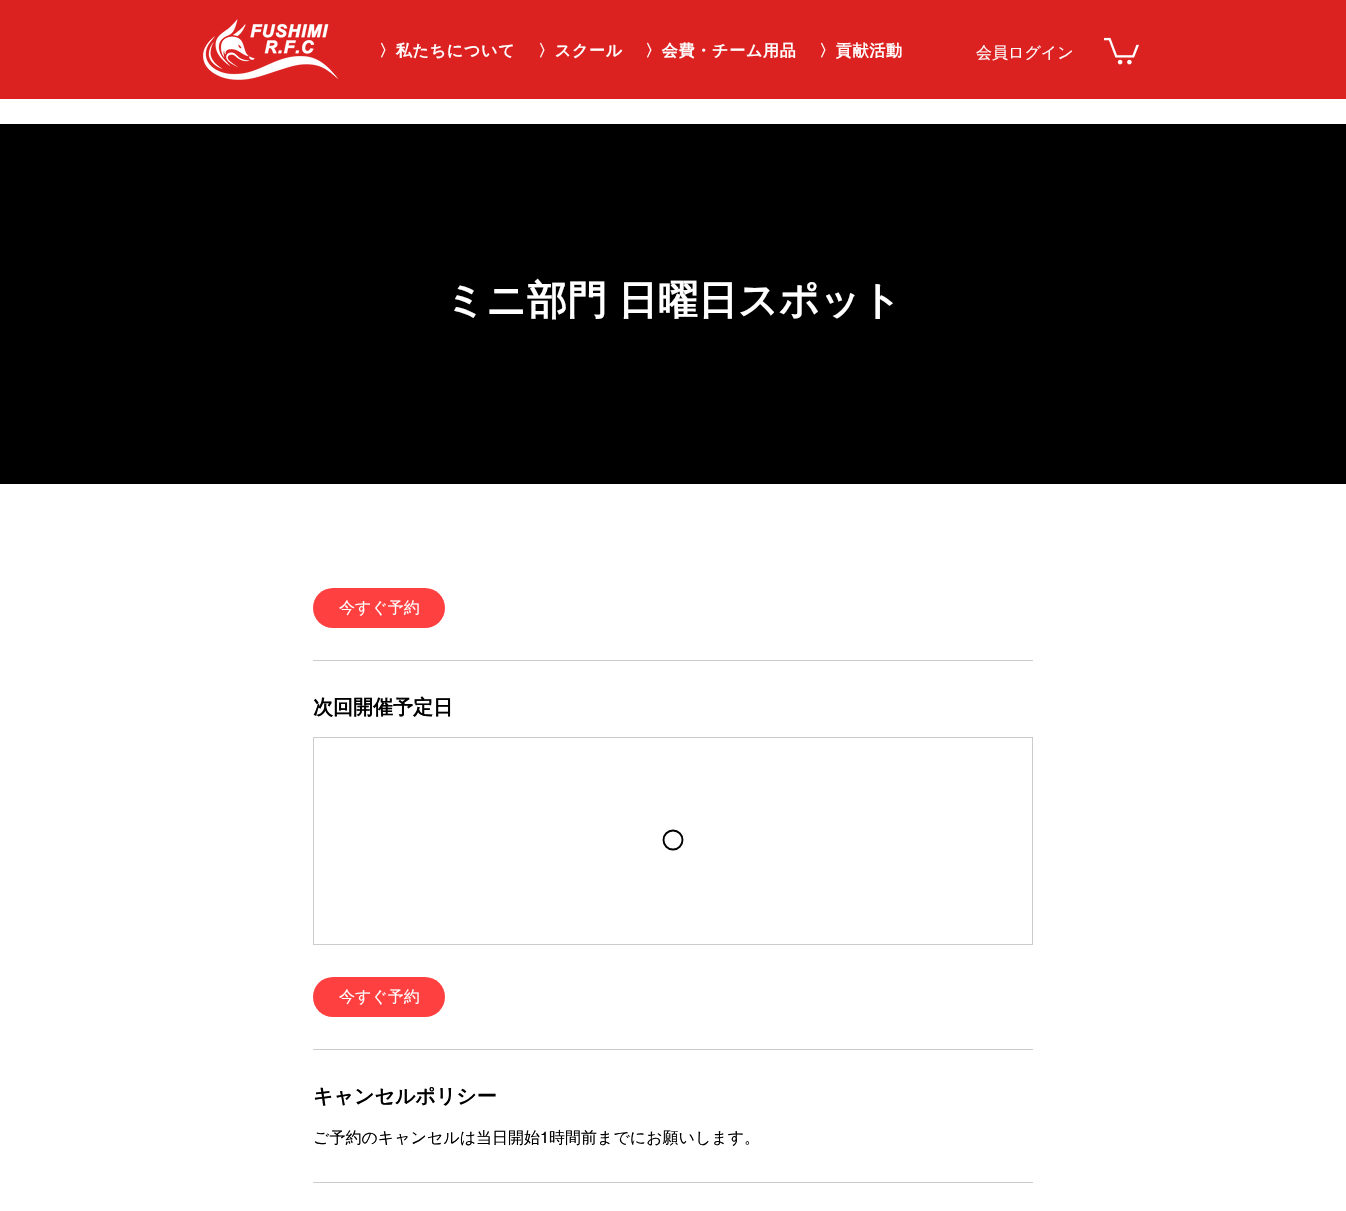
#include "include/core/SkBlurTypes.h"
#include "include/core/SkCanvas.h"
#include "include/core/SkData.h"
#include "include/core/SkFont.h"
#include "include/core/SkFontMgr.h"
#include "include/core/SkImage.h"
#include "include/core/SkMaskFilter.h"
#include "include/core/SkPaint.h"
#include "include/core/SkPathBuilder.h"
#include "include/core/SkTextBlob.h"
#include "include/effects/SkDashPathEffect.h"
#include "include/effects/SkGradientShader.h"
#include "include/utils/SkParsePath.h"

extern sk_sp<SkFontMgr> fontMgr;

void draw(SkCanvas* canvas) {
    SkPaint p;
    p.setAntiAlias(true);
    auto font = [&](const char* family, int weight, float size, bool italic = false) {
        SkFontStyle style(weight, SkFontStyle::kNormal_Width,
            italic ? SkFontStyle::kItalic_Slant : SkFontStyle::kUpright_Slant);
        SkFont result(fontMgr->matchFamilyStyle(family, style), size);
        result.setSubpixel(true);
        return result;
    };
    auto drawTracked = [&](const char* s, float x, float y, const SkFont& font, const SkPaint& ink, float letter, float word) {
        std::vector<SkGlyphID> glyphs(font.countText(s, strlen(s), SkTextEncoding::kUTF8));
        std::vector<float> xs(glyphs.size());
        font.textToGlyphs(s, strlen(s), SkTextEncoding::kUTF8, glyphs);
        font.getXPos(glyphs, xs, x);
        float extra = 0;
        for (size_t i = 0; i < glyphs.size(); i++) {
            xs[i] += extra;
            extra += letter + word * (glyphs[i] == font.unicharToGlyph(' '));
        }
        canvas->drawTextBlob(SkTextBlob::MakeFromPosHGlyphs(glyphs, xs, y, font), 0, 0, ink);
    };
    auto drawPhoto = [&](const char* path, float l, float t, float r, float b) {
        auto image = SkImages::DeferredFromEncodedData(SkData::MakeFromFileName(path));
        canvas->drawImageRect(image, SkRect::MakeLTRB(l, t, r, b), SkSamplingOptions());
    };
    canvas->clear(0xFFFFFFFF);
    p.setColor(0xFFDC2121);
    canvas->drawRect(SkRect::MakeLTRB(0, 0, 1346, 99), p);
    drawPhoto("media/1.png", 203, 19, 338, 80);
    auto font1 = font("WenQuanYi Zen Hei", 700, 16);
    p.setColor(0xFFFFFFFF);
    {
        const struct { const char* s; float x, y; } items[] = {
            {"〉私たちについて", 379, 56},
            {"〉スクール", 538, 56},
            {"〉会費・チーム用品", 645, 56},
            {"〉貢献活動", 819, 56},
        };
        for (auto [s, x, y] : items) {
            drawTracked(s, x, y, font1, p, 0.75f, 0);
        }
    }
    auto font2 = font("WenQuanYi Zen Hei", 500, 16);
    canvas->drawString("会員ログイン", 976, 58, font2, p);
    drawPhoto("media/2.png", 1104, 37, 1139, 65);
    p.setColor(0xFF000000);
    canvas->drawRect(SkRect::MakeLTRB(0, 124, 1346, 484), p);
    auto font3 = font("WenQuanYi Zen Hei", 700, 40);
    p.setColor(0xFFFFFFFF);
    drawTracked("ミニ部門 日曜日スポット", 445, 314, font3, p, 0, -1);
    p.setColor(0xFFFF4040);
    canvas->drawRoundRect(SkRect::MakeLTRB(313, 588, 445, 628), 20, 20, p);
    p.setColor(0xFFFFFFFF);
    canvas->drawString("今すぐ予約", 339, 613, font2, p);
    p.setColor(0xFFCCCCCC);
    canvas->drawRect(SkRect::MakeLTRB(313, 660, 1033, 661), p);
    auto font4 = font("WenQuanYi Zen Hei", 700, 20);
    p.setColor(0xFF000000);
    canvas->drawString("次回開催予定日", 313, 714, font4, p);
    p.setStyle(SkPaint::kStroke_Style);
    p.setStrokeWidth(1);
    p.setColor(0xFFCCCCCC);
    canvas->drawRect(SkRect::MakeLTRB(313.5f, 737.5f, 1032.5f, 944.5f), p);
    p.setStrokeWidth(1.9f);
    p.setColor(0xFF000000);
    canvas->drawCircle(673, 840, 9.5f, p);
    p.setStyle(SkPaint::kFill_Style);
    p.setColor(0xFFFF4040);
    canvas->drawRoundRect(SkRect::MakeLTRB(313, 977, 445, 1017), 20, 20, p);
    p.setColor(0xFFFFFFFF);
    canvas->drawString("今すぐ予約", 339, 1002, font2, p);
    p.setColor(0xFFCCCCCC);
    canvas->drawRect(SkRect::MakeLTRB(313, 1049, 1033, 1050), p);
    p.setColor(0xFF000000);
    canvas->drawString("キャンセルポリシー", 313, 1103, font4, p);
    canvas->drawString("ご予約のキャンセルは当日開始", 313, 1143, font2, p);
    auto font5 = font("helvetica", 400, 16);
    canvas->drawString("1", 540, 1143, font5, p);
    canvas->drawString("時間前までにお願いします。", 549, 1143, font2, p);
    p.setColor(0xFFCCCCCC);
    canvas->drawRect(SkRect::MakeLTRB(313, 1182, 1033, 1183), p);
}
